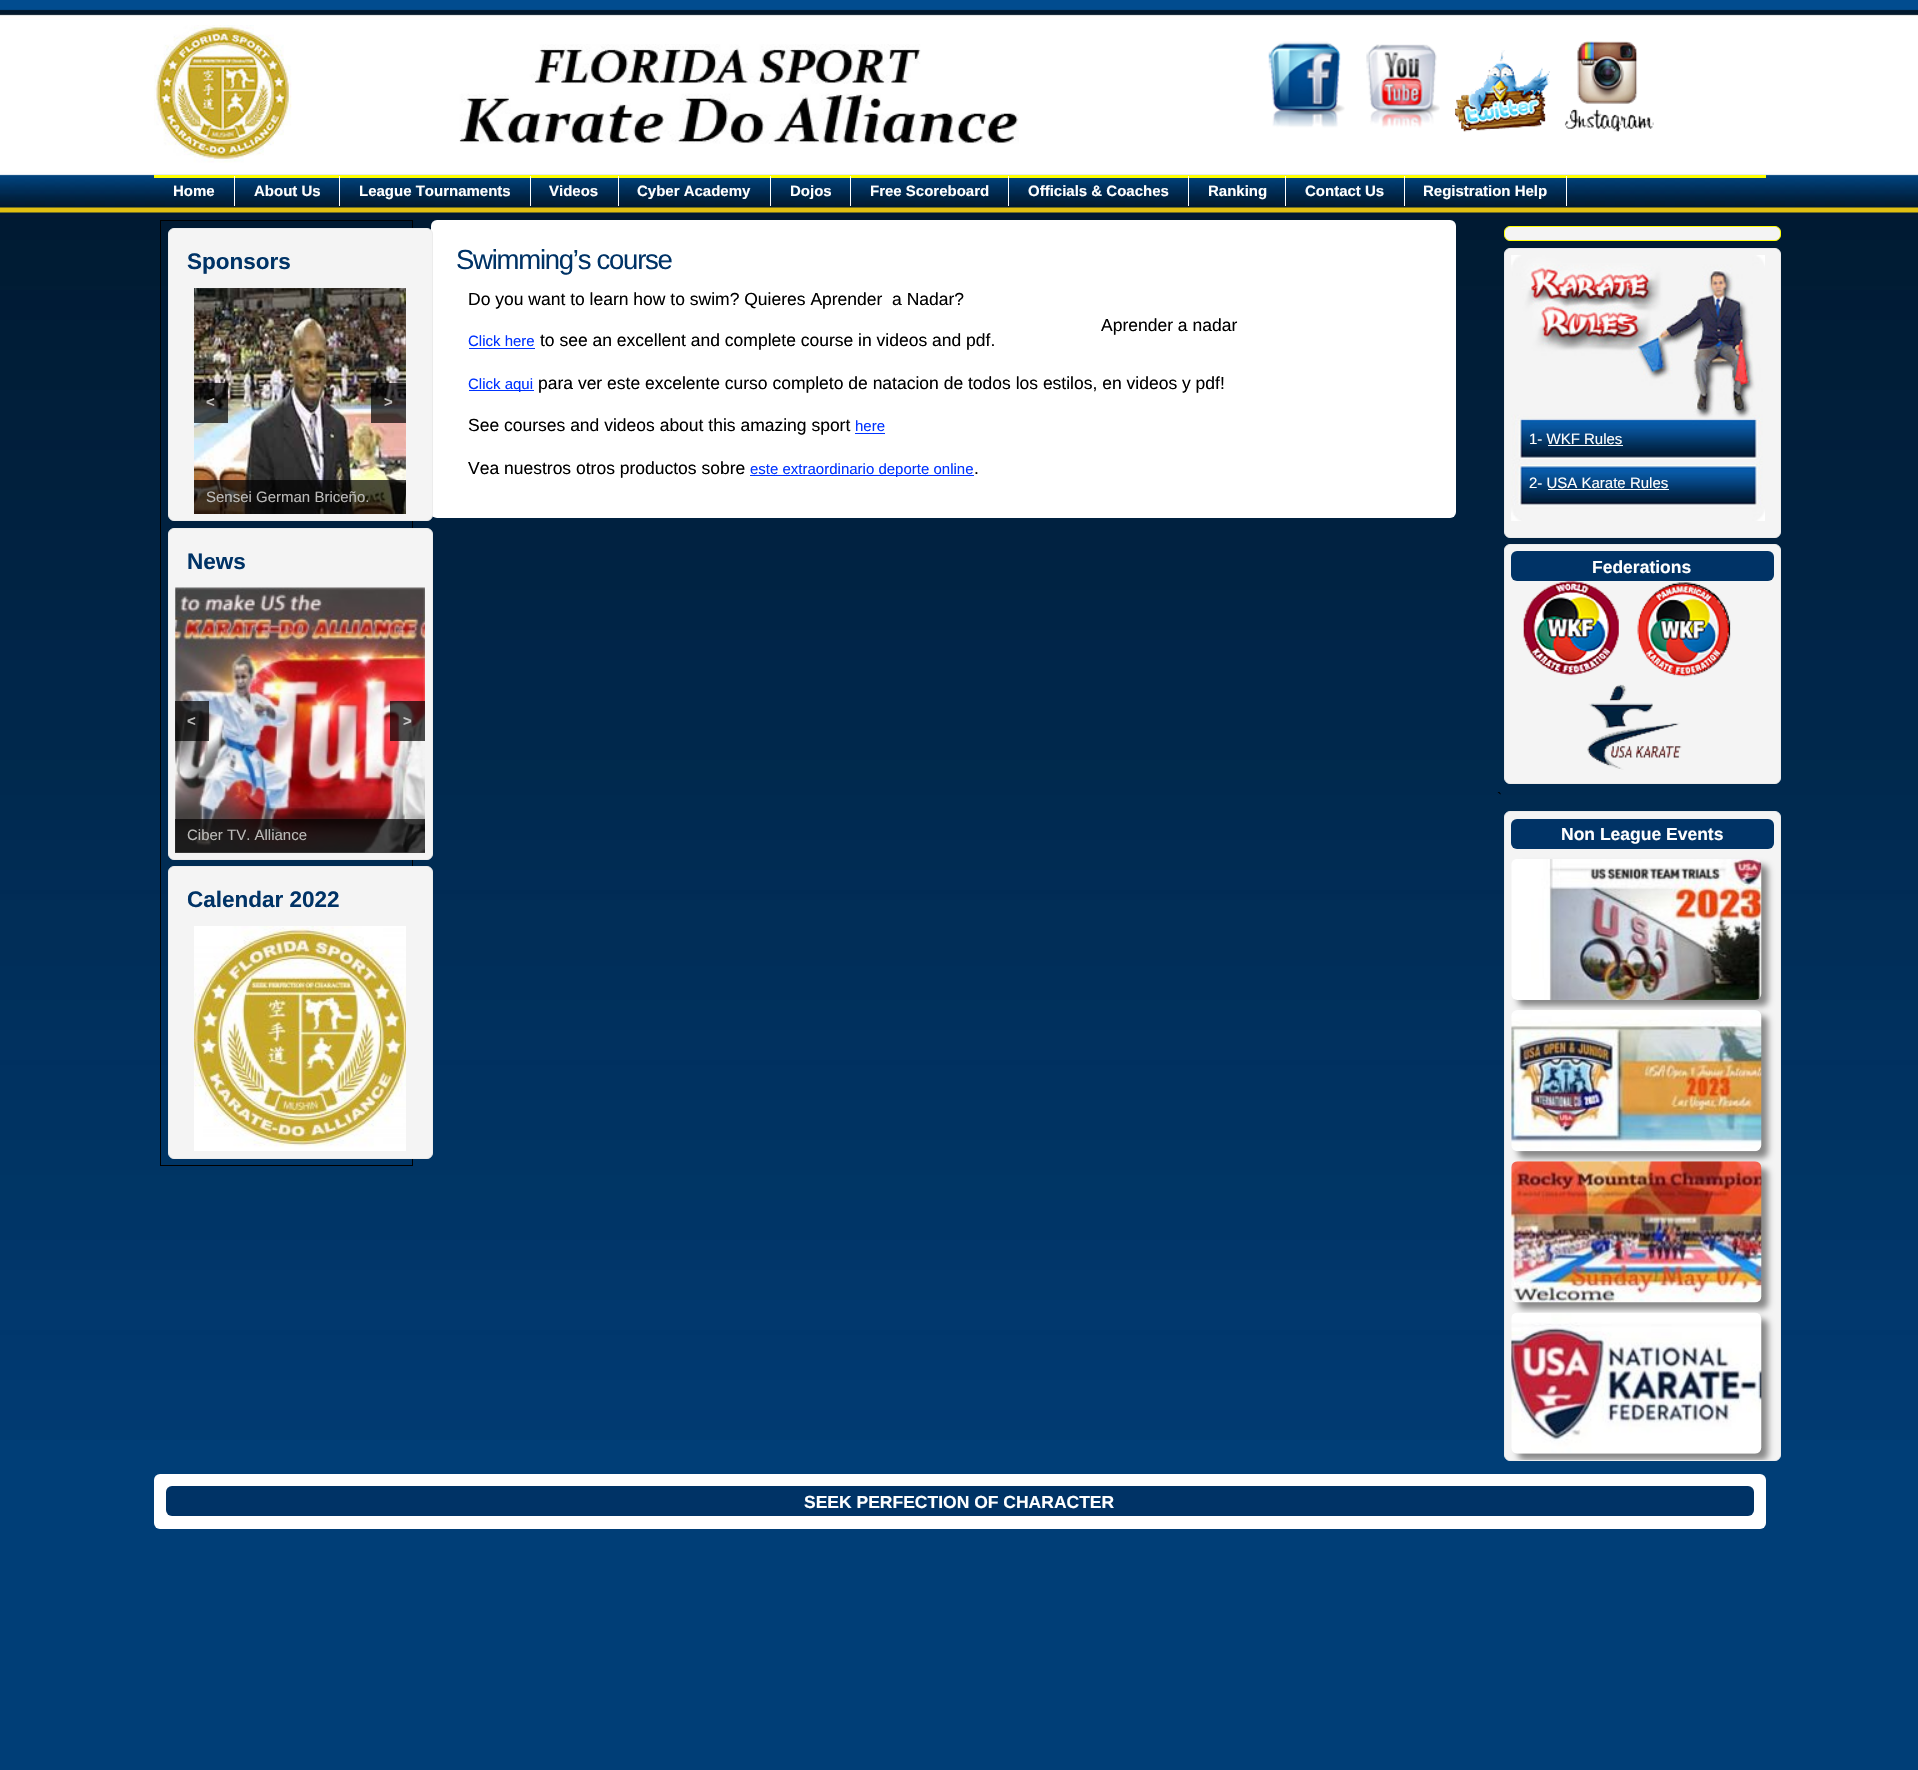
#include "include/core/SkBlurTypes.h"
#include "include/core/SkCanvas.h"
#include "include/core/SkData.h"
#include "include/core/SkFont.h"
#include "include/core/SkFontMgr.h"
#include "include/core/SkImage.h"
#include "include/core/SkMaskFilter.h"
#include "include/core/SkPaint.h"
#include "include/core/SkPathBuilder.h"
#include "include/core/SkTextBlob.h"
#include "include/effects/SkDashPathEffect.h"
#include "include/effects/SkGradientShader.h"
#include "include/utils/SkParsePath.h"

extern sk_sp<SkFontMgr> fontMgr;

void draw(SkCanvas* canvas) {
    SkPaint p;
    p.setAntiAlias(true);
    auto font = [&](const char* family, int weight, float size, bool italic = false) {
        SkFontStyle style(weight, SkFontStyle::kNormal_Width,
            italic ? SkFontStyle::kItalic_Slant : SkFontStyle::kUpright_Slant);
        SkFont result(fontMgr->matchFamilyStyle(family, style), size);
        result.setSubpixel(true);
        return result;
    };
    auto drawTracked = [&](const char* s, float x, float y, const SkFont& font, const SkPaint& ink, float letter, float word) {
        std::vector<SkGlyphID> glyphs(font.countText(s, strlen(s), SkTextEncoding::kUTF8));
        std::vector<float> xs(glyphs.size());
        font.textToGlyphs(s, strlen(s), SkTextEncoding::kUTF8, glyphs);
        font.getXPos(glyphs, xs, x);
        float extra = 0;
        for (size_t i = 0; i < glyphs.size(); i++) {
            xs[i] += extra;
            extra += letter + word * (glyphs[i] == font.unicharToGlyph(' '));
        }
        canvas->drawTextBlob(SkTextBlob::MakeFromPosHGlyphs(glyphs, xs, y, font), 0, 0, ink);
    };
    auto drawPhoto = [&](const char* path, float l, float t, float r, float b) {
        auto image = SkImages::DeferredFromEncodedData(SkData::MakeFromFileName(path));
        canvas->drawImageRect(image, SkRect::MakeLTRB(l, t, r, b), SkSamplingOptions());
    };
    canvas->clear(0xFF003E77);
    drawPhoto("media/1.png", 0, 0, 1918, 1440);
    drawPhoto("media/2.png", 154, 25, 292, 163);
    drawPhoto("media/3.png", 420, 44, 1019, 144);
    drawPhoto("media/4.png", 1268, 41, 1345, 128);
    drawPhoto("media/5.png", 1366, 44, 1440, 128);
    drawPhoto("media/6.png", 1455, 50, 1550, 132);
    drawPhoto("media/7.png", 1564, 41, 1654, 132);
    p.setColor(0xFFFFFF00);
    canvas->drawRect(SkRect::MakeLTRB(154, 175, 1766, 178), p);
    p.setColor(0xFFFFFFFF);
    canvas->drawRect(SkRect::MakeLTRB(234, 176, 235, 206), p);
    auto font1 = font("Liberation Sans", 700, 15);
    canvas->drawString("Home", 173, 196, font1, p);
    canvas->drawRect(SkRect::MakeLTRB(339, 176, 340, 206), p);
    canvas->drawString("About Us", 254, 196, font1, p);
    canvas->drawRect(SkRect::MakeLTRB(530, 176, 531, 206), p);
    canvas->drawString("League Tournaments", 359, 196, font1, p);
    canvas->drawRect(SkRect::MakeLTRB(618, 176, 619, 206), p);
    canvas->drawString("Videos", 549, 196, font1, p);
    canvas->drawRect(SkRect::MakeLTRB(770, 176, 771, 206), p);
    canvas->drawString("Cyber Academy", 637, 196, font1, p);
    canvas->drawRect(SkRect::MakeLTRB(850, 176, 851, 206), p);
    canvas->drawString("Dojos", 790, 196, font1, p);
    canvas->drawRect(SkRect::MakeLTRB(1008, 176, 1009, 206), p);
    canvas->drawString("Free Scoreboard", 870, 196, font1, p);
    canvas->drawRect(SkRect::MakeLTRB(1188, 176, 1189, 206), p);
    canvas->drawString("Officials & Coaches", 1028, 196, font1, p);
    canvas->drawRect(SkRect::MakeLTRB(1285, 176, 1286, 206), p);
    canvas->drawString("Ranking", 1208, 196, font1, p);
    canvas->drawRect(SkRect::MakeLTRB(1404, 176, 1405, 206), p);
    canvas->drawString("Contact Us", 1305, 196, font1, p);
    canvas->drawRect(SkRect::MakeLTRB(1566, 176, 1567, 206), p);
    canvas->drawString("Registration Help", 1423, 196, font1, p);
    p.setStyle(SkPaint::kStroke_Style);
    p.setStrokeWidth(1);
    p.setColor(0xFF000000);
    canvas->drawRect(SkRect::MakeLTRB(160.5f, 220.5f, 412.5f, 1165.5f), p);
    p.setStyle(SkPaint::kFill_Style);
    p.setColor(0xFFFFFFFF);
    canvas->drawRoundRect(SkRect::MakeLTRB(431, 220, 1456, 518), 6, 6, p);
    p.setColor(0xFFF4F4F4);
    canvas->drawRoundRect(SkRect::MakeLTRB(168.5f, 228.5f, 432.5f, 520.5f), 5.5f, 5.5f, p);
    p.setStyle(SkPaint::kStroke_Style);
    p.setColor(0xFFECECEC);
    canvas->drawRoundRect(SkRect::MakeLTRB(168.5f, 228.5f, 432.5f, 520.5f), 5.5f, 5.5f, p);
    auto font2 = font("Liberation Sans", 700, 22.5f);
    p.setStyle(SkPaint::kFill_Style);
    p.setColor(0xFF003366);
    canvas->drawString("Sponsors", 187, 269, font2, p);
    drawPhoto("media/8.png", 194, 288, 406, 514);
    p.setColor(0xB3000000);
    canvas->drawRect(SkRect::MakeLTRB(194, 383, 228, 423), p);
    p.setColor(0xFFC0BFBE);
    canvas->drawString("<", 206, 407, font1, p);
    p.setColor(0xB3000000);
    canvas->drawRect(SkRect::MakeLTRB(371, 383, 406, 423), p);
    p.setColor(0xFFC0BFBE);
    canvas->drawString(">", 384, 407, font1, p);
    p.setColor(0xB3000000);
    canvas->drawRect(SkRect::MakeLTRB(194, 480, 406, 514), p);
    auto font3 = font("Liberation Sans", 400, 15);
    p.setColor(0xFFBBBAB8);
    canvas->drawString("Sensei German Briceño.", 206, 502, font3, p);
    p.setColor(0xFFF4F4F4);
    canvas->drawRoundRect(SkRect::MakeLTRB(168.5f, 528.5f, 432.5f, 859.5f), 5.5f, 5.5f, p);
    p.setStyle(SkPaint::kStroke_Style);
    p.setColor(0xFFECECEC);
    canvas->drawRoundRect(SkRect::MakeLTRB(168.5f, 528.5f, 432.5f, 859.5f), 5.5f, 5.5f, p);
    p.setStyle(SkPaint::kFill_Style);
    p.setColor(0xFF003366);
    canvas->drawString("News", 187, 569, font2, p);
    drawPhoto("media/9.png", 175, 587, 425, 853);
    p.setColor(0xB3000000);
    canvas->drawRect(SkRect::MakeLTRB(175, 701, 209, 741), p);
    p.setColor(0xFFBBBAB8);
    canvas->drawString("<", 187, 726, font1, p);
    p.setColor(0xB3000000);
    canvas->drawRect(SkRect::MakeLTRB(390, 701, 425, 741), p);
    p.setColor(0xFFC9C8C8);
    canvas->drawString(">", 403, 726, font1, p);
    p.setColor(0xB3000000);
    canvas->drawRect(SkRect::MakeLTRB(175, 819, 425, 853), p);
    p.setColor(0xFFBBBAB8);
    canvas->drawString("Ciber TV. Alliance", 187, 840, font3, p);
    p.setColor(0xFFF4F4F4);
    canvas->drawRoundRect(SkRect::MakeLTRB(168.5f, 866.5f, 432.5f, 1158.5f), 5.5f, 5.5f, p);
    p.setStyle(SkPaint::kStroke_Style);
    p.setColor(0xFFECECEC);
    canvas->drawRoundRect(SkRect::MakeLTRB(168.5f, 866.5f, 432.5f, 1158.5f), 5.5f, 5.5f, p);
    p.setStyle(SkPaint::kFill_Style);
    p.setColor(0xFF003366);
    canvas->drawString("Calendar 2022", 187, 907, font2, p);
    drawPhoto("media/10.png", 194, 926, 406, 1151);
    auto font4 = font("Liberation Sans", 400, 27.5f);
    drawTracked("Swimming’s course", 456, 269, font4, p, -1.25f, 0);
    auto font5 = font("Liberation Sans", 400, 17.5f);
    p.setColor(0xFF000000);
    canvas->drawString("Do you want to learn how to swim? Quieres Aprender  a Nadar?", 468, 305, font5, p);
    canvas->drawString("Aprender a nadar", 1101, 331, font5, p);
    p.setColor(0xFF0033FF);
    canvas->drawString("Click here", 468, 346, font3, p);
    canvas->drawRect(SkRect::MakeLTRB(469, 348, 535, 349), p);
    p.setColor(0xFF000000);
    canvas->drawString("to see an excellent and complete course in videos and pdf.", 540, 346, font5, p);
    p.setColor(0xFF0033FF);
    canvas->drawRect(SkRect::MakeLTRB(469, 390, 534, 391), p);
    canvas->drawString("Click aqui", 468, 389, font3, p);
    p.setColor(0xFF000000);
    canvas->drawString("para ver este excelente curso completo de natacion de todos los estilos, en videos y pdf!", 538, 389, font5, p);
    canvas->drawString("See courses and videos about this amazing sport", 468, 431, font5, p);
    p.setColor(0xFF0033FF);
    canvas->drawString("here", 855, 431, font3, p);
    canvas->drawRect(SkRect::MakeLTRB(855, 433, 885, 434), p);
    p.setColor(0xFF000000);
    canvas->drawString("Vea nuestros otros productos sobre", 468, 474, font5, p);
    p.setColor(0xFF0033FF);
    canvas->drawRect(SkRect::MakeLTRB(750, 475, 974, 476), p);
    canvas->drawString("este extraordinario deporte online", 750, 474, font3, p);
    p.setColor(0xFF000000);
    canvas->drawString(".", 974, 474, font5, p);
    p.setColor(0xFFF4F4F4);
    canvas->drawRoundRect(SkRect::MakeLTRB(1504.5f, 226.5f, 1780.5f, 240.5f), 5.5f, 5.5f, p);
    p.setStyle(SkPaint::kStroke_Style);
    p.setColor(0xFFFFFF00);
    canvas->drawRoundRect(SkRect::MakeLTRB(1504.5f, 226.5f, 1780.5f, 240.5f), 5.5f, 5.5f, p);
    p.setStyle(SkPaint::kFill_Style);
    p.setColor(0xFFF4F4F4);
    canvas->drawRoundRect(SkRect::MakeLTRB(1504.5f, 248.5f, 1780.5f, 537.5f), 5.5f, 5.5f, p);
    p.setStyle(SkPaint::kStroke_Style);
    p.setColor(0xFFECECEC);
    canvas->drawRoundRect(SkRect::MakeLTRB(1504.5f, 248.5f, 1780.5f, 537.5f), 5.5f, 5.5f, p);
    drawPhoto("media/11.png", 1511, 255, 1765, 521);
    p.setStyle(SkPaint::kFill_Style);
    p.setColor(0xFFFFFFFF);
    canvas->drawString("1- WKF Rules", 1529, 444, font3, p);
    canvas->drawRect(SkRect::MakeLTRB(1548, 445, 1623, 446), p);
    canvas->drawString("2- USA Karate Rules", 1529, 488, font3, p);
    canvas->drawRect(SkRect::MakeLTRB(1548, 489, 1669, 490), p);
    p.setColor(0xFFF4F4F4);
    canvas->drawRoundRect(SkRect::MakeLTRB(1504.5f, 544.5f, 1780.5f, 783.5f), 5.5f, 5.5f, p);
    p.setStyle(SkPaint::kStroke_Style);
    p.setColor(0xFFECECEC);
    canvas->drawRoundRect(SkRect::MakeLTRB(1504.5f, 544.5f, 1780.5f, 783.5f), 5.5f, 5.5f, p);
    p.setStyle(SkPaint::kFill_Style);
    p.setColor(0xFF003366);
    canvas->drawRoundRect(SkRect::MakeLTRB(1511, 551, 1774, 581), 6, 6, p);
    auto font6 = font("Liberation Sans", 700, 17.5f);
    p.setColor(0xFFFFFFFF);
    canvas->drawString("Federations", 1592, 573, font6, p);
    drawPhoto("media/12.png", 1523, 581, 1619, 676);
    drawPhoto("media/13.png", 1637, 582, 1731, 677);
    drawPhoto("media/14.png", 1587, 684, 1682, 770);
    p.setColor(0xFF000000);
    canvas->drawString("`", 1497, 803, font3, p);
    p.setColor(0xFFF4F4F4);
    canvas->drawRoundRect(SkRect::MakeLTRB(1504.5f, 811.5f, 1780.5f, 1460.5f), 5.5f, 5.5f, p);
    p.setStyle(SkPaint::kStroke_Style);
    p.setColor(0xFFECECEC);
    canvas->drawRoundRect(SkRect::MakeLTRB(1504.5f, 811.5f, 1780.5f, 1460.5f), 5.5f, 5.5f, p);
    p.setStyle(SkPaint::kFill_Style);
    p.setColor(0xFF003366);
    canvas->drawRoundRect(SkRect::MakeLTRB(1511, 819, 1774, 849), 6, 6, p);
    p.setColor(0xFFFFFFFF);
    canvas->drawString("Non League Events", 1561, 840, font6, p);
    p.setColor(0xFF888888);
    p.setMaskFilter(SkMaskFilter::MakeBlur(kNormal_SkBlurStyle, 3));
    canvas->drawRoundRect(SkRect::MakeLTRB(1518, 865, 1768, 1006), 6, 6, p);
    p.setMaskFilter(nullptr);
    drawPhoto("media/15.png", 1511, 859, 1762, 1000);
    p.setMaskFilter(SkMaskFilter::MakeBlur(kNormal_SkBlurStyle, 3));
    canvas->drawRoundRect(SkRect::MakeLTRB(1518, 1016, 1768, 1158), 6, 6, p);
    p.setMaskFilter(nullptr);
    drawPhoto("media/16.png", 1511, 1010, 1762, 1152);
    p.setMaskFilter(SkMaskFilter::MakeBlur(kNormal_SkBlurStyle, 3));
    canvas->drawRoundRect(SkRect::MakeLTRB(1518, 1168, 1768, 1309), 6, 6, p);
    p.setMaskFilter(nullptr);
    drawPhoto("media/17.png", 1511, 1161, 1762, 1303);
    canvas->save();
    canvas->clipPath(SkPathBuilder().moveTo(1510, 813).lineTo(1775, 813).cubicTo(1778, 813, 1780, 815, 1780, 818).lineTo(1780, 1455).cubicTo(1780, 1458, 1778, 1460, 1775, 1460).lineTo(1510, 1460).cubicTo(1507, 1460, 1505, 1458, 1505, 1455).lineTo(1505, 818).cubicTo(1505, 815, 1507, 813, 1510, 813).close().detach(), true);
    p.setMaskFilter(SkMaskFilter::MakeBlur(kNormal_SkBlurStyle, 3));
    canvas->drawRoundRect(SkRect::MakeLTRB(1518, 1319, 1768, 1460), 6, 6, p);
    p.setMaskFilter(nullptr);
    canvas->restore();
    drawPhoto("media/18.png", 1511, 1312, 1762, 1454);
    p.setColor(0xFFFFFFFF);
    canvas->drawRoundRect(SkRect::MakeLTRB(154, 1474, 1766, 1529), 6, 6, p);
    p.setColor(0xFF003366);
    canvas->drawRoundRect(SkRect::MakeLTRB(166, 1486, 1754, 1516), 6, 6, p);
    p.setColor(0xFFFFFFFF);
    canvas->drawString("SEEK PERFECTION OF CHARACTER", 804, 1508, font6, p);
}
